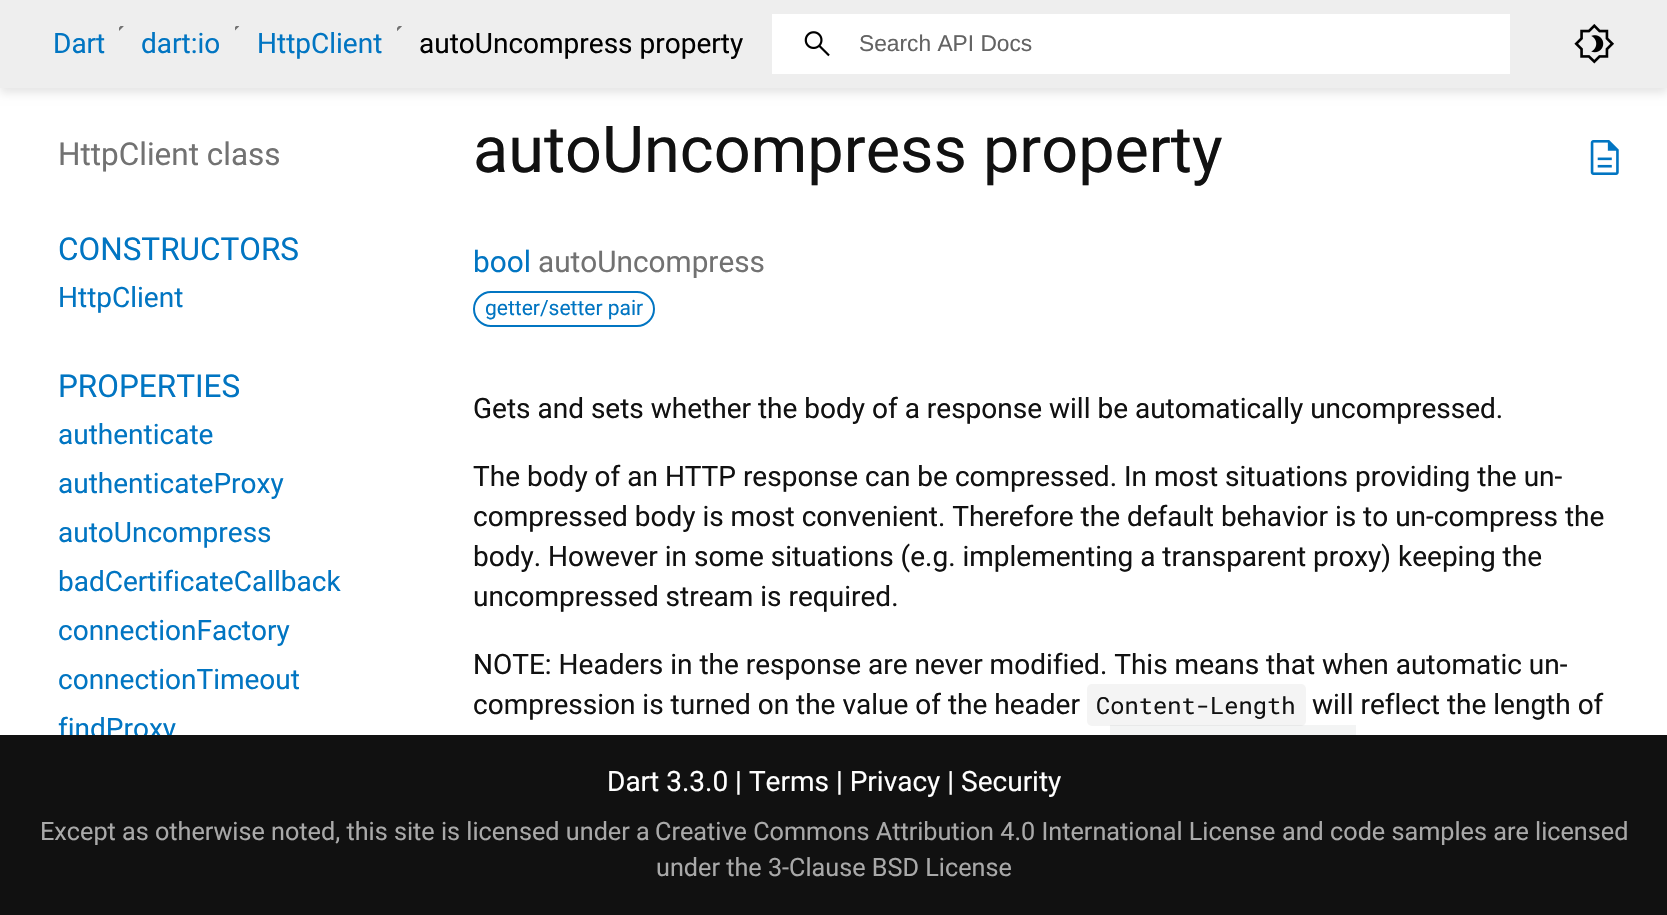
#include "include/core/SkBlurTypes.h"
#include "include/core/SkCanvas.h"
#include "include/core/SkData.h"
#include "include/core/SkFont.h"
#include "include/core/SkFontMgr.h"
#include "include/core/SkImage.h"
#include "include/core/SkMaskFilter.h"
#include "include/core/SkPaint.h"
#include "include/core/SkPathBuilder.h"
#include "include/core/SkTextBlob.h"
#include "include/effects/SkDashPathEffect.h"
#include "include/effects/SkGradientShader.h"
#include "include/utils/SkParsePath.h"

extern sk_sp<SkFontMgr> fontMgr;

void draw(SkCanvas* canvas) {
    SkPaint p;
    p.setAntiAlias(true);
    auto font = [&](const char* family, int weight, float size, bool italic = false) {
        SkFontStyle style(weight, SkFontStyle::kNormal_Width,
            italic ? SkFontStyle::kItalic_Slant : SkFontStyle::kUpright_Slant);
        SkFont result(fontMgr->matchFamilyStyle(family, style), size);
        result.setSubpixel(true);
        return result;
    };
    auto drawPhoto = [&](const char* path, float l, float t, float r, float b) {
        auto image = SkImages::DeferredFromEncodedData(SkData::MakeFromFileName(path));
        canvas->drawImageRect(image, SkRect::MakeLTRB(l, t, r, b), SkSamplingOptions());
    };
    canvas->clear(0xFFFFFFFF);
    p.setColor(0x1A000000);
    p.setMaskFilter(SkMaskFilter::MakeBlur(kNormal_SkBlurStyle, 4.5f));
    canvas->drawRect(SkRect::MakeLTRB(0, 5, 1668, 93), p);
    p.setMaskFilter(nullptr);
    p.setColor(0xFFEEEEEE);
    canvas->drawRect(SkRect::MakeLTRB(0, 0, 1667, 88), p);
    auto font1 = font("Roboto", 400, 28);
    p.setColor(0xFF0175C2);
    canvas->drawString("Dart", 53, 53, font1, p);
    drawPhoto("media/1.png", 119, 26, 124, 31);
    canvas->drawString("dart:io", 141, 53, font1, p);
    drawPhoto("media/2.png", 235, 26, 240, 31);
    canvas->drawString("HttpClient", 257, 53, font1, p);
    drawPhoto("media/3.png", 397, 26, 402, 31);
    p.setColor(0xFF000000);
    canvas->drawString("autoUncompress property", 419, 53, font1, p);
    p.setColor(0xFFFFFFFF);
    canvas->drawRect(SkRect::MakeLTRB(772, 14, 1510, 74), p);
    drawPhoto("media/4.png", 804, 31, 830, 57);
    auto font2 = font("Liberation Sans", 400, 22.75f);
    p.setColor(0xFF636363);
    canvas->drawString("Search API Docs", 859, 51, font2, p);
    drawPhoto("media/5.png", 1574, 24, 1614, 64);
    auto font3 = font("Roboto", 400, 31.5f);
    p.setColor(0xFF727272);
    canvas->drawString("HttpClient class", 58, 165, font3, p);
    p.setColor(0xFF0175C2);
    canvas->drawString("CONSTRUCTORS", 58, 260, font3, p);
    canvas->drawString("HttpClient", 58, 307, font1, p);
    canvas->drawString("PROPERTIES", 58, 397, font3, p);
    {
        const struct { const char* s; float x, y; } items[] = {
            {"authenticate", 58, 444},
            {"authenticateProxy", 58, 493},
            {"autoUncompress", 58, 542},
            {"badCertificateCallback", 58, 591},
            {"connectionFactory", 58, 640},
            {"connectionTimeout", 58, 689},
        };
        for (auto [s, x, y] : items) {
            canvas->drawString(s, x, y, font1, p);
        }
    }
    canvas->save();
    canvas->clipRect(SkRect::MakeLTRB(53, 705, 403, 735));
    canvas->drawString("findProxy", 58, 738, font1, p);
    canvas->restore();
    auto font4 = font("Roboto", 400, 64.75f);
    p.setColor(0xFF111111);
    canvas->drawString("autoUncompress property", 473, 172, font4, p);
    drawPhoto("media/6.png", 1590, 140, 1619, 175);
    auto font5 = font("Roboto", 400, 29.75f);
    p.setColor(0xFF0175C2);
    canvas->drawString("bool", 473, 272, font5, p);
    p.setColor(0xFF727272);
    canvas->drawString("autoUncompress", 538, 272, font5, p);
    p.setStyle(SkPaint::kStroke_Style);
    p.setStrokeWidth(2);
    p.setColor(0xFF0175C2);
    canvas->drawRoundRect(SkRect::MakeLTRB(474, 292, 654, 326), 17, 17, p);
    auto font6 = font("Roboto", 400, 21);
    p.setStyle(SkPaint::kFill_Style);
    canvas->drawString("getter/setter pair", 485, 315, font6, p);
    p.setColor(0xFF111111);
    {
        const struct { const char* s; float x, y; } items[] = {
            {"Gets and sets whether the body of a response will be automatically uncompressed.", 473, 418},
            {"The body of an HTTP response can be compressed. In most situations providing the un-", 473, 486},
            {"compressed body is most convenient. Therefore the default behavior is to un-compress the", 473, 526},
            {"body. However in some situations (e.g. implementing a transparent proxy) keeping the", 473, 566},
            {"uncompressed stream is required.", 473, 606},
            {"NOTE: Headers in the response are never modified. This means that when automatic un-", 473, 674},
            {"compression is turned on the value of the header", 473, 714},
        };
        for (auto [s, x, y] : items) {
            canvas->drawString(s, x, y, font1, p);
        }
    }
    p.setColor(0xFFF4F4F4);
    canvas->drawRoundRect(SkRect::MakeLTRB(1087, 684, 1306, 726), 5, 5, p);
    auto font7 = font("Roboto Mono", 400, 23.75f);
    p.setColor(0xFF111111);
    canvas->drawString("Content-Length", 1096, 714, font7, p);
    canvas->drawString("will reflect the length of", 1312, 714, font1, p);
    p.setColor(0x0D1B1F23);
    canvas->drawRect(SkRect::MakeLTRB(1110, 725, 1356, 735), p);
    p.setColor(0xFF111111);
    canvas->drawRect(SkRect::MakeLTRB(0, 735, 1667, 915), p);
    p.setColor(0xFFFFFFFF);
    canvas->drawString("Dart 3.3.0 | Terms | Privacy | Security", 607, 791, font1, p);
    auto font8 = font("Roboto", 400, 25.2f);
    p.setColor(0xFFA9A9A9);
    {
        const struct { const char* s; float x, y; } items[] = {
            {"Except as otherwise noted, this site is licensed under a", 40, 840},
            {"Creative Commons Attribution 4.0 International License", 655, 840},
            {"and code samples are licensed", 1282, 840},
            {"under the 3-Clause BSD License", 656, 876},
        };
        for (auto [s, x, y] : items) {
            canvas->drawString(s, x, y, font8, p);
        }
    }
}
